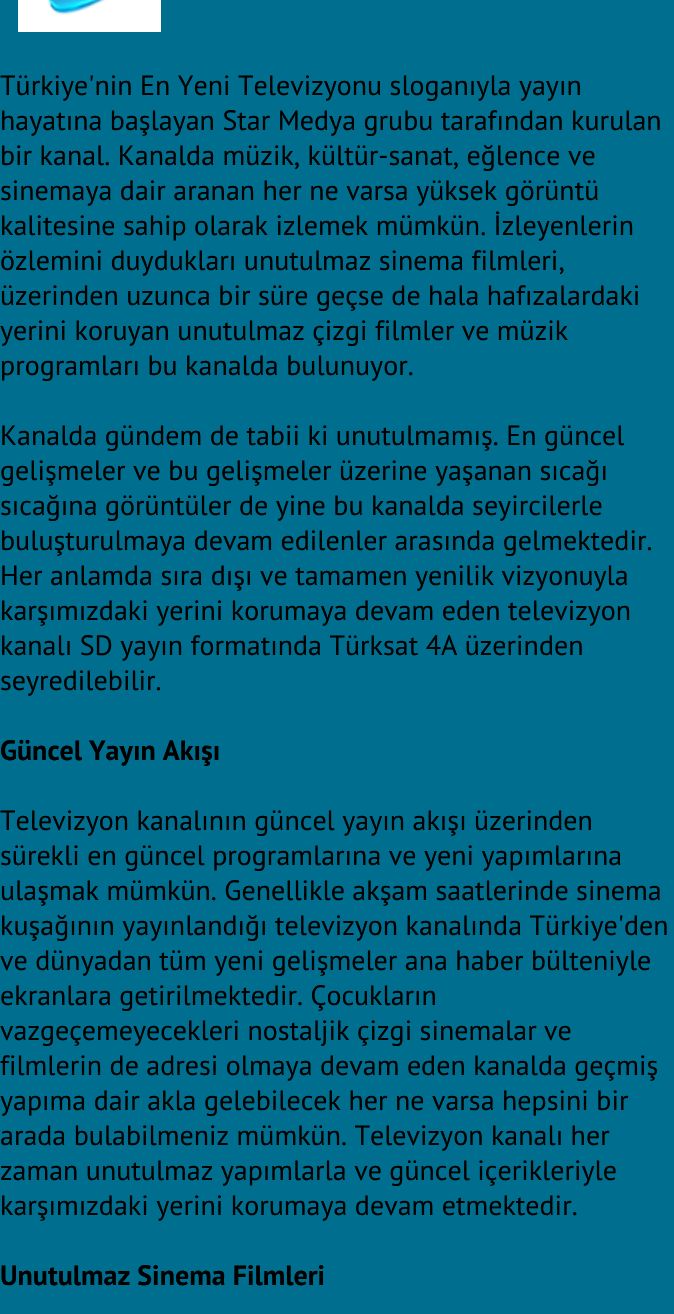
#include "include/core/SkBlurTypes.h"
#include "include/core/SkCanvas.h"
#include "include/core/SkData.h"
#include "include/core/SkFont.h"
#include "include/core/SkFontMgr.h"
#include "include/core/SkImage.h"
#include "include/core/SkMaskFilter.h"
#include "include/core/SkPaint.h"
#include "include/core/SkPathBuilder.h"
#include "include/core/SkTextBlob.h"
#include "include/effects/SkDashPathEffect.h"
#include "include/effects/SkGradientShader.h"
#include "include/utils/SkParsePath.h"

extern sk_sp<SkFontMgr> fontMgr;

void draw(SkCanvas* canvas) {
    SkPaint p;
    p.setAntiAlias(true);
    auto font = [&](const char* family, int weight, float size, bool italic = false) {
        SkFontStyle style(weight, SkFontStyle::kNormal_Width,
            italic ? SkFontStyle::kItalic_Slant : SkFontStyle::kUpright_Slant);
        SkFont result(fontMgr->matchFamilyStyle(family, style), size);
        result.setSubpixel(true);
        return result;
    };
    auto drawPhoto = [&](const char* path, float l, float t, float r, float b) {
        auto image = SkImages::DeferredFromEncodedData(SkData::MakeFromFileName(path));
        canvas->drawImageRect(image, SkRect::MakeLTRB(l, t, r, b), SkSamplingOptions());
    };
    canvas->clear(0xFF006F8F);
    p.setColor(0xFFFFFFFF);
    canvas->drawRect(SkRect::MakeLTRB(18, 0, 161, 32), p);
    drawPhoto("media/1.png", 48, 0, 106, 15);
    auto font1 = font("PT Sans", 400, 28);
    p.setColor(0xFF000000);
    {
        const struct { const char* s; float x, y; } items[] = {
            {"Türkiye'nin En Yeni Televizyonu sloganıyla yayın", 0, 95},
            {"hayatına başlayan Star Medya grubu tarafından kurulan", 0, 130},
            {"bir kanal. Kanalda müzik, kültür-sanat, eğlence ve", 0, 165},
            {"sinemaya dair aranan her ne varsa yüksek görüntü", 0, 200},
            {"kalitesine sahip olarak izlemek mümkün. İzleyenlerin", 0, 235},
            {"özlemini duydukları unutulmaz sinema filmleri,", 0, 270},
            {"üzerinden uzunca bir süre geçse de hala hafızalardaki", 0, 305},
            {"yerini koruyan unutulmaz çizgi filmler ve müzik", 0, 340},
            {"programları bu kanalda bulunuyor.", 0, 375},
            {"Kanalda gündem de tabii ki unutulmamış. En güncel", 0, 445},
            {"gelişmeler ve bu gelişmeler üzerine yaşanan sıcağı", 0, 480},
            {"sıcağına görüntüler de yine bu kanalda seyircilerle", 0, 515},
            {"buluşturulmaya devam edilenler arasında gelmektedir.", 0, 550},
            {"Her anlamda sıra dışı ve tamamen yenilik vizyonuyla", 0, 585},
            {"karşımızdaki yerini korumaya devam eden televizyon", 0, 620},
            {"kanalı SD yayın formatında Türksat 4A üzerinden", 0, 655},
            {"seyredilebilir.", 0, 690},
        };
        for (auto [s, x, y] : items) {
            canvas->drawString(s, x, y, font1, p);
        }
    }
    auto font2 = font("PT Sans", 700, 28);
    canvas->drawString("Güncel Yayın Akışı", 0, 760, font2, p);
    {
        const struct { const char* s; float x, y; } items[] = {
            {"Televizyon kanalının güncel yayın akışı üzerinden", 0, 830},
            {"sürekli en güncel programlarına ve yeni yapımlarına", 0, 865},
            {"ulaşmak mümkün. Genellikle akşam saatlerinde sinema", 0, 900},
            {"kuşağının yayınlandığı televizyon kanalında Türkiye'den", 0, 935},
            {"ve dünyadan tüm yeni gelişmeler ana haber bülteniyle", 0, 970},
            {"ekranlara getirilmektedir. Çocukların", 0, 1005},
            {"vazgeçemeyecekleri nostaljik çizgi sinemalar ve", 0, 1040},
            {"filmlerin de adresi olmaya devam eden kanalda geçmiş", 0, 1075},
            {"yapıma dair akla gelebilecek her ne varsa hepsini bir", 0, 1110},
            {"arada bulabilmeniz mümkün. Televizyon kanalı her", 0, 1145},
            {"zaman unutulmaz yapımlarla ve güncel içerikleriyle", 0, 1180},
            {"karşımızdaki yerini korumaya devam etmektedir.", 0, 1215},
        };
        for (auto [s, x, y] : items) {
            canvas->drawString(s, x, y, font1, p);
        }
    }
    canvas->drawString("Unutulmaz Sinema Filmleri", 0, 1285, font2, p);
}
